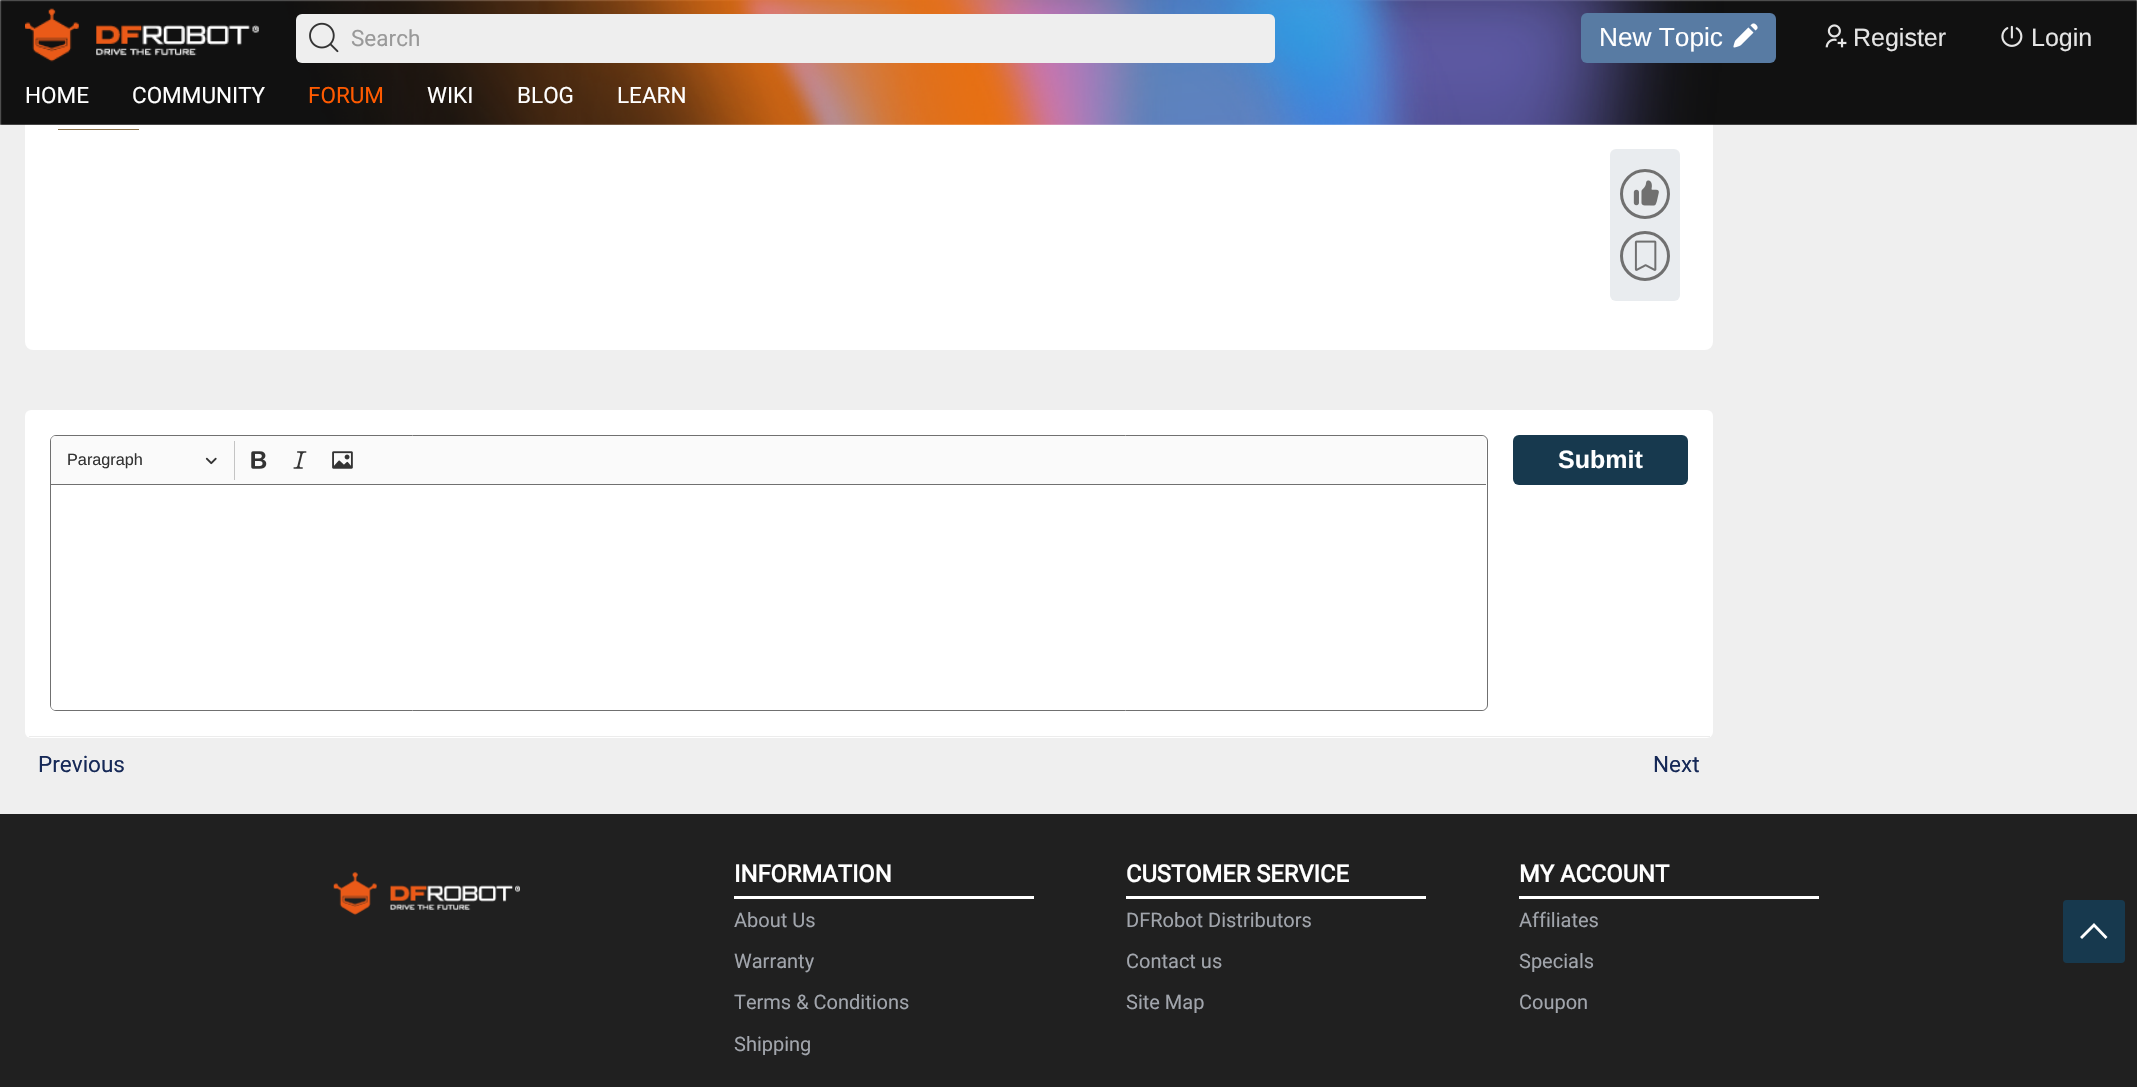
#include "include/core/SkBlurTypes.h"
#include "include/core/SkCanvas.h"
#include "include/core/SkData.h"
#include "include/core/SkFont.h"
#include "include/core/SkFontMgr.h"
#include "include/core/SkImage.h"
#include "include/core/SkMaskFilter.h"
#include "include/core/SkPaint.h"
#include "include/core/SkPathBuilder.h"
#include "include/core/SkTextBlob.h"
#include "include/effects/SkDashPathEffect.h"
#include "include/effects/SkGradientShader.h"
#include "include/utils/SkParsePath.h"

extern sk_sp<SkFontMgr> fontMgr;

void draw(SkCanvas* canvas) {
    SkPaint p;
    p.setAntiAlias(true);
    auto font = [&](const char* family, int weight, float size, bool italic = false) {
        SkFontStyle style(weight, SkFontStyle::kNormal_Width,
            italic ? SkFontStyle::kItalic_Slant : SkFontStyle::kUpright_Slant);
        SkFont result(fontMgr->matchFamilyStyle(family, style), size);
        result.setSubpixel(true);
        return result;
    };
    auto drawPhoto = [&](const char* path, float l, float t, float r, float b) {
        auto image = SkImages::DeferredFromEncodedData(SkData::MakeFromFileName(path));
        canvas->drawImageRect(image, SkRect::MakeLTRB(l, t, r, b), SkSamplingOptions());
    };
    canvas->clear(0xFFEFEFEF);
    p.setColor(0xFFFFFFFF);
    canvas->drawRoundRect(SkRect::MakeLTRB(25, -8, 1713, 350), 8, 8, p);
    drawPhoto("media/1.png", 0, 0, 2137, 125);
    drawPhoto("media/2.png", 25, 8, 259, 62);
    p.setColor(0xFFEEEEEE);
    canvas->drawRoundRect(SkRect::MakeLTRB(296, 14, 1275, 63), 6, 6, p);
    drawPhoto("media/3.png", 309, 22, 339, 53);
    auto font1 = font("Roboto", 400, 22.5f);
    p.setColor(0xFF999999);
    canvas->drawString("Search", 351, 46, font1, p);
    p.setColor(0xFF587BA3);
    canvas->drawRoundRect(SkRect::MakeLTRB(1581, 13, 1776, 63), 6, 6, p);
    auto font2 = font("Liberation Sans", 400, 26.25f);
    p.setColor(0xFFFFFFFF);
    canvas->drawString("New Topic", 1599, 46, font2, p);
    drawPhoto("media/4.png", 1733, 23, 1758, 48);
    drawPhoto("media/5.png", 1825, 24, 1847, 48);
    auto font3 = font("Liberation Sans", 400, 25);
    p.setColor(0xFFE5E5E5);
    canvas->drawString("Register", 1853, 46, font3, p);
    drawPhoto("media/6.png", 2001, 25, 2023, 47);
    canvas->drawString("Login", 2031, 46, font3, p);
    p.setColor(0xFFFFFFFF);
    canvas->drawString("HOME", 25, 103, font1, p);
    canvas->drawString("COMMUNITY", 132, 103, font1, p);
    p.setColor(0xFFFF5A00);
    canvas->drawString("FORUM", 308, 103, font1, p);
    p.setColor(0xFFFFFFFF);
    {
        const struct { const char* s; float x, y; } items[] = {
            {"WIKI", 427, 103},
            {"BLOG", 517, 103},
            {"LEARN", 617, 103},
        };
        for (auto [s, x, y] : items) {
            canvas->drawString(s, x, y, font1, p);
        }
    }
    p.setColor(0xFF202020);
    canvas->drawRect(SkRect::MakeLTRB(0, 814, 2137, 1087), p);
    p.setColor(0xFF17394E);
    canvas->drawRoundRect(SkRect::MakeLTRB(2063, 900, 2125, 963), 4, 4, p);
    p.setColor(0xFFFFFFFF);
    canvas->drawPath(SkPathBuilder().moveTo(2107.5f, 937).lineTo(2094, 923).lineTo(2080, 937).lineTo(2082, 939).lineTo(2094, 927).lineTo(2105.5f, 939).close().detach(), p);
    p.setColor(0xFF8C734A);
    canvas->drawRect(SkRect::MakeLTRB(58, 129, 139, 130), p);
    p.setColor(0xFFE9ECEF);
    canvas->drawRoundRect(SkRect::MakeLTRB(1610, 149, 1680, 301), 6, 6, p);
    p.setStyle(SkPaint::kStroke_Style);
    p.setStrokeWidth(3);
    p.setColor(0xFF707070);
    canvas->drawCircle(1645, 194, 23.5f, p);
    drawPhoto("media/7.png", 1633, 180, 1659, 206);
    canvas->drawCircle(1645, 256, 23.5f, p);
    drawPhoto("media/8.png", 1634, 240, 1657, 271);
    p.setStyle(SkPaint::kFill_Style);
    p.setColor(0xFFFFFFFF);
    canvas->drawRoundRect(SkRect::MakeLTRB(25, 410, 1713, 738), 6, 6, p);
    p.setColor(0xFFECECEC);
    canvas->drawRect(SkRect::MakeLTRB(29, 736, 1710, 737), p);
    p.setStyle(SkPaint::kStroke_Style);
    p.setStrokeWidth(1);
    p.setColor(0xFF707070);
    canvas->drawRoundRect(SkRect::MakeLTRB(50.5f, 435.5f, 1487.5f, 710.5f), 5.5f, 5.5f, p);
    p.setStyle(SkPaint::kFill_Style);
    p.setColor(0xFFFAFAFA);
    canvas->drawPath(SkPathBuilder().moveTo(56, 436).lineTo(1481, 436).cubicTo(1484, 436, 1486, 438, 1486, 441).lineTo(1486, 485).lineTo(51, 485).lineTo(51, 441).cubicTo(51, 438, 53, 436, 56, 436).close().detach(), p);
    p.setColor(0xFF707070);
    canvas->drawRect(SkRect::MakeLTRB(51, 484, 1486, 485), p);
    auto font4 = font("Liberation Sans", 400, 16.25f);
    p.setColor(0xFF333333);
    canvas->drawString("Paragraph", 67, 465, font4, p);
    drawPhoto("media/9.png", 205, 457, 217, 465);
    p.setColor(0xFFC4C4C4);
    canvas->drawRect(SkRect::MakeLTRB(234, 441, 235, 480), p);
    drawPhoto("media/10.png", 251, 451, 267, 469);
    drawPhoto("media/11.png", 293, 451, 307, 469);
    drawPhoto("media/12.png", 332, 451, 353, 469);
    p.setColor(0xFFFFFFFF);
    canvas->drawPath(SkPathBuilder().moveTo(51, 485).lineTo(1486, 485).lineTo(1486, 705).cubicTo(1486, 708, 1484, 710, 1481, 710).lineTo(56, 710).cubicTo(53, 710, 51, 708, 51, 705).close().detach(), p);
    p.setColor(0xFF17394E);
    canvas->drawRoundRect(SkRect::MakeLTRB(1513, 435, 1688, 485), 6, 6, p);
    auto font5 = font("Liberation Sans", 700, 25);
    p.setColor(0xFFFFFFFF);
    canvas->drawString("Submit", 1558, 468, font5, p);
    p.setColor(0xFF162957);
    canvas->drawString("Previous", 38, 772, font1, p);
    canvas->drawString("Next", 1653, 772, font1, p);
    drawPhoto("media/13.png", 333, 872, 520, 915);
    p.setColor(0xFFFFFFFF);
    canvas->drawRect(SkRect::MakeLTRB(734, 896, 1034, 899), p);
    auto font6 = font("Roboto", 700, 23.75f);
    canvas->drawString("INFORMATION", 734, 882, font6, p);
    auto font7 = font("Roboto", 400, 20);
    p.setColor(0xFFA1A5AC);
    {
        const struct { const char* s; float x, y; } items[] = {
            {"About Us", 734, 927},
            {"Warranty", 734, 968},
            {"Terms & Conditions", 734, 1009},
            {"Shipping", 734, 1051},
        };
        for (auto [s, x, y] : items) {
            canvas->drawString(s, x, y, font7, p);
        }
    }
    p.setColor(0xFFFFFFFF);
    canvas->drawRect(SkRect::MakeLTRB(1126, 896, 1426, 899), p);
    canvas->drawString("CUSTOMER SERVICE", 1126, 882, font6, p);
    p.setColor(0xFFA1A5AC);
    {
        const struct { const char* s; float x, y; } items[] = {
            {"DFRobot Distributors", 1126, 927},
            {"Contact us", 1126, 968},
            {"Site Map", 1126, 1009},
        };
        for (auto [s, x, y] : items) {
            canvas->drawString(s, x, y, font7, p);
        }
    }
    p.setColor(0xFFFFFFFF);
    canvas->drawRect(SkRect::MakeLTRB(1519, 896, 1819, 899), p);
    canvas->drawString("MY ACCOUNT", 1519, 882, font6, p);
    p.setColor(0xFFA1A5AC);
    {
        const struct { const char* s; float x, y; } items[] = {
            {"Affiliates", 1519, 927},
            {"Specials", 1519, 968},
            {"Coupon", 1519, 1009},
        };
        for (auto [s, x, y] : items) {
            canvas->drawString(s, x, y, font7, p);
        }
    }
}
